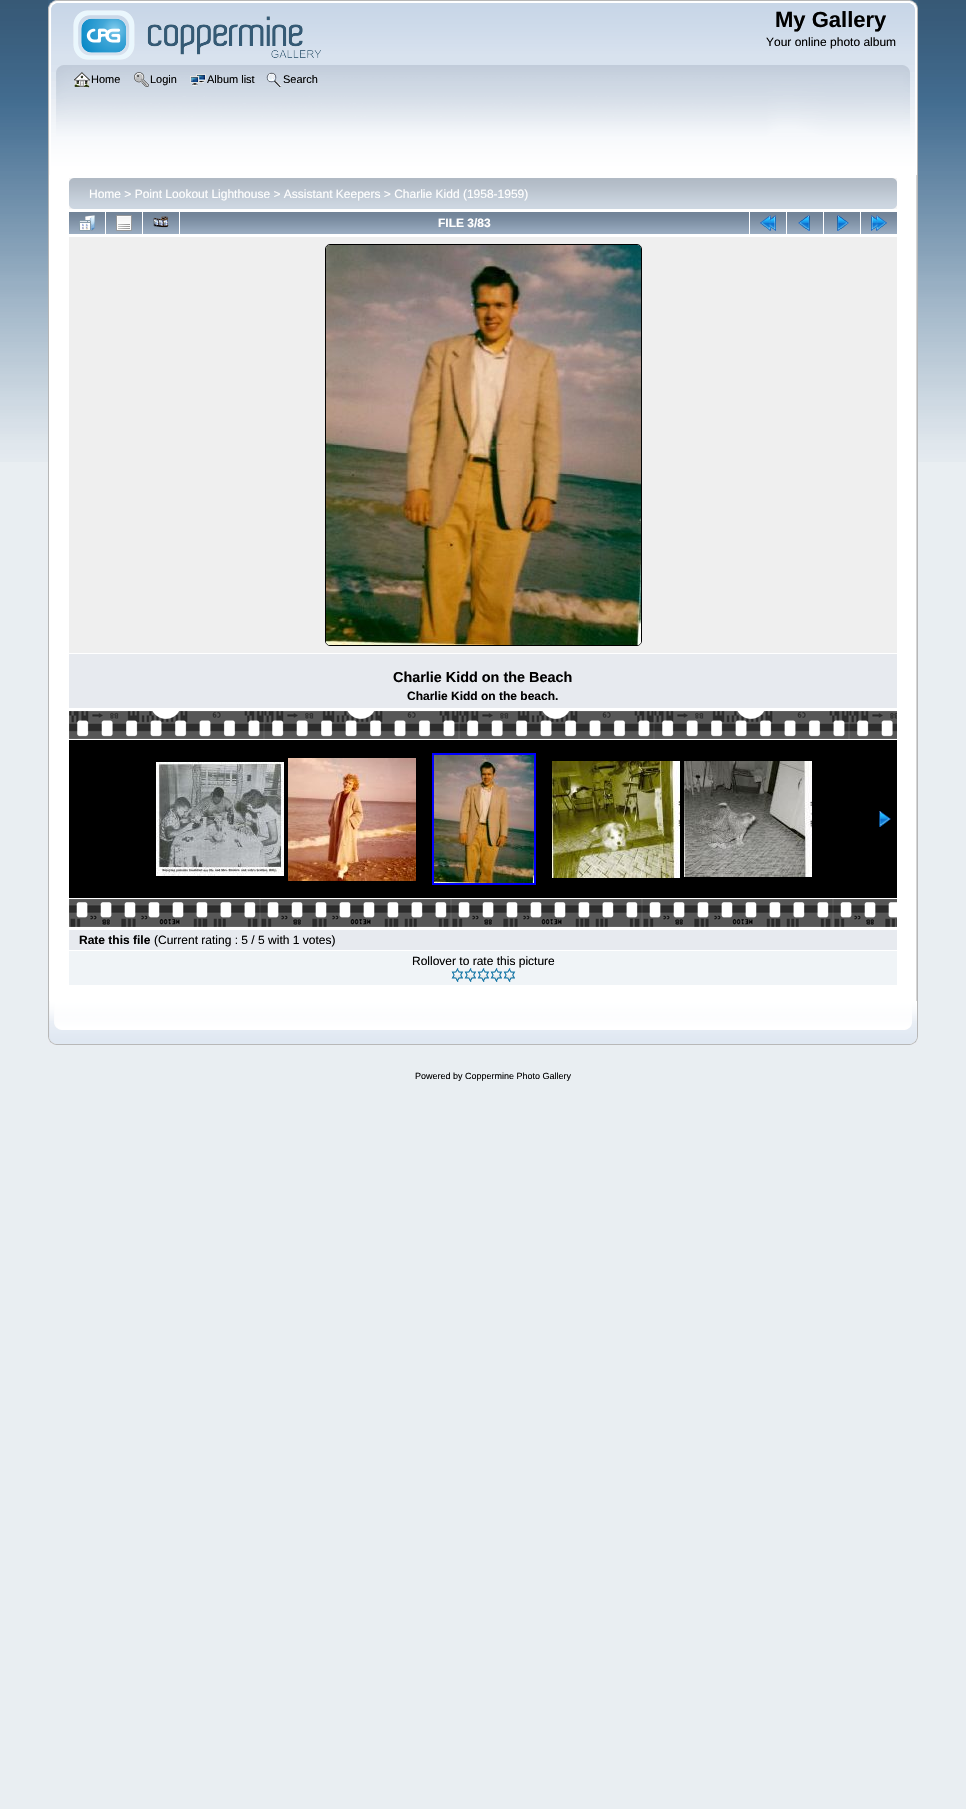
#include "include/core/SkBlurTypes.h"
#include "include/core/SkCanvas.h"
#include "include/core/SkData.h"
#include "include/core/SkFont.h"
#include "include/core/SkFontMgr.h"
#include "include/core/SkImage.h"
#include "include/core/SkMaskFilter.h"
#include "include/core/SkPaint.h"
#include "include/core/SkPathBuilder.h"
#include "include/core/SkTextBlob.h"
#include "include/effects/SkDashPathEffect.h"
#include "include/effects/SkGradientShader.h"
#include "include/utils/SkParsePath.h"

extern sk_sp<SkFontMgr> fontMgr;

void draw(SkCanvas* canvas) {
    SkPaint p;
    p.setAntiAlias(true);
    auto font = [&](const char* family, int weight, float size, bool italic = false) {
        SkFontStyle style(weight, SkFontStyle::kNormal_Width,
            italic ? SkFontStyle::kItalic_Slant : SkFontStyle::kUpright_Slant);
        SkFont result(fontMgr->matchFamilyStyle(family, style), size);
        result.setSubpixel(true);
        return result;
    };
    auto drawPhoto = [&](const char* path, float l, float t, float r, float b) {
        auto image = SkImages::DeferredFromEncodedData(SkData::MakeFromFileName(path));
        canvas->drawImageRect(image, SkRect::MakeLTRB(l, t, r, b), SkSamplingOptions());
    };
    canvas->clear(0xFFE9EEF2);
    drawPhoto("media/1.png", 0, 0, 966, 462);
    drawPhoto("media/2.png", 48, 0, 910, 65);
    drawPhoto("media/3.png", 910, 0, 918, 65);
    drawPhoto("media/4.png", 73, 10, 321, 60);
    auto font1 = font("Liberation Sans", 700, 22);
    p.setColor(0xFF000000);
    canvas->drawString("My Gallery", 775, 27, font1, p);
    auto font2 = font("Liberation Sans", 400, 12);
    canvas->drawString("Your online photo album", 766, 46, font2, p);
    drawPhoto("media/5.png", 48, 65, 903, 175);
    drawPhoto("media/6.png", 903, 65, 918, 175);
    drawPhoto("media/7.png", 74, 72, 90, 88);
    auto font3 = font("Liberation Sans", 400, 11);
    canvas->drawString("Home", 91, 83, font3, p);
    drawPhoto("media/8.png", 134, 72, 149, 87);
    canvas->drawString("Login", 150, 83, font3, p);
    drawPhoto("media/9.png", 190, 74, 206, 86);
    canvas->drawString("Album list", 207, 83, font3, p);
    drawPhoto("media/10.png", 266, 72, 282, 87);
    canvas->drawString("Search", 283, 83, font3, p);
    p.setColor(0xFFFFFFFF);
    canvas->drawRect(SkRect::MakeLTRB(49, 175, 916, 1001), p);
    p.setColor(0xFFB7B7B7);
    canvas->drawRect(SkRect::MakeLTRB(48, 175, 49, 1001), p);
    drawPhoto("media/11.png", 916, 175, 918, 1001);
    drawPhoto("media/12.png", 69, 178, 892, 209);
    drawPhoto("media/13.png", 892, 178, 897, 209);
    p.setColor(0xFFFFFFFF);
    canvas->drawString("Home > Point Lookout Lighthouse > Assistant Keepers > Charlie Kidd (1958-1959)", 89, 198, font2, p);
    drawPhoto("media/14.png", 69, 212, 105, 234);
    drawPhoto("media/15.png", 79, 215, 95, 231);
    drawPhoto("media/14.png", 106, 212, 142, 234);
    drawPhoto("media/16.png", 116, 215, 132, 231);
    drawPhoto("media/14.png", 143, 212, 179, 234);
    drawPhoto("media/17.png", 153, 216, 169, 228);
    drawPhoto("media/18.png", 180, 212, 749, 234);
    auto font4 = font("Liberation Sans", 700, 12);
    canvas->drawString("FILE 3/83", 438, 227, font4, p);
    drawPhoto("media/14.png", 750, 212, 786, 234);
    drawPhoto("media/19.png", 760, 215, 776, 231);
    drawPhoto("media/14.png", 787, 212, 823, 234);
    drawPhoto("media/20.png", 798, 215, 810, 231);
    drawPhoto("media/14.png", 824, 212, 860, 234);
    drawPhoto("media/21.png", 837, 215, 849, 231);
    drawPhoto("media/14.png", 861, 212, 897, 234);
    drawPhoto("media/22.png", 871, 215, 887, 231);
    p.setColor(0xFFEFEFEF);
    canvas->drawRect(SkRect::MakeLTRB(69, 237, 897, 653), p);
    p.setStyle(SkPaint::kStroke_Style);
    p.setStrokeWidth(1);
    p.setColor(0xFF000000);
    canvas->drawRoundRect(SkRect::MakeLTRB(325.5f, 244.5f, 641.5f, 645.5f), 4.5f, 4.5f, p);
    drawPhoto("media/23.png", 326, 245, 641, 645);
    p.setStyle(SkPaint::kFill_Style);
    p.setColor(0xFFE7EAEF);
    canvas->drawRect(SkRect::MakeLTRB(69, 654, 897, 708), p);
    auto font5 = font("Liberation Sans", 700, 14.4f);
    p.setColor(0xFF000000);
    canvas->drawString("Charlie Kidd on the Beach", 393, 682, font5, p);
    canvas->drawString("Charlie Kidd on the beach.", 407, 700, font4, p);
    drawPhoto("media/24.png", 69, 711, 897, 739);
    canvas->drawRect(SkRect::MakeLTRB(69, 740, 897, 898), p);
    drawPhoto("media/25.png", 156, 762, 284, 876);
    drawPhoto("media/26.png", 288, 758, 416, 881);
    p.setStyle(SkPaint::kStroke_Style);
    p.setStrokeWidth(2);
    p.setColor(0xFF0000FF);
    canvas->drawRect(SkRect::MakeLTRB(433, 754, 535, 884), p);
    drawPhoto("media/27.png", 434, 755, 534, 883);
    drawPhoto("media/28.png", 552, 761, 680, 878);
    drawPhoto("media/29.png", 684, 761, 812, 877);
    drawPhoto("media/30.png", 879, 811, 891, 827);
    drawPhoto("media/31.png", 69, 899, 897, 927);
    p.setStyle(SkPaint::kFill_Style);
    p.setColor(0xFFE7EAEF);
    canvas->drawRect(SkRect::MakeLTRB(69, 930, 897, 950), p);
    p.setColor(0xFF000000);
    canvas->drawString("Rate this file", 79, 944, font4, p);
    canvas->drawString("(Current rating : 5 / 5 with 1 votes)", 154, 944, font2, p);
    p.setColor(0xFFF0F4F7);
    canvas->drawRect(SkRect::MakeLTRB(69, 951, 897, 985), p);
    p.setColor(0xFF000000);
    canvas->drawString("Rollover to rate this picture", 412, 965, font2, p);
    drawPhoto("media/32.png", 451, 968, 464, 982);
    drawPhoto("media/32.png", 464, 968, 477, 982);
    drawPhoto("media/32.png", 477, 968, 490, 982);
    drawPhoto("media/32.png", 490, 968, 503, 982);
    drawPhoto("media/32.png", 503, 968, 516, 982);
    drawPhoto("media/33.png", 48, 1001, 905, 1045);
    drawPhoto("media/34.png", 905, 1001, 918, 1045);
    auto font6 = font("Liberation Sans", 400, 9);
    canvas->drawString("Powered by Coppermine Photo Gallery", 415, 1079, font6, p);
}
